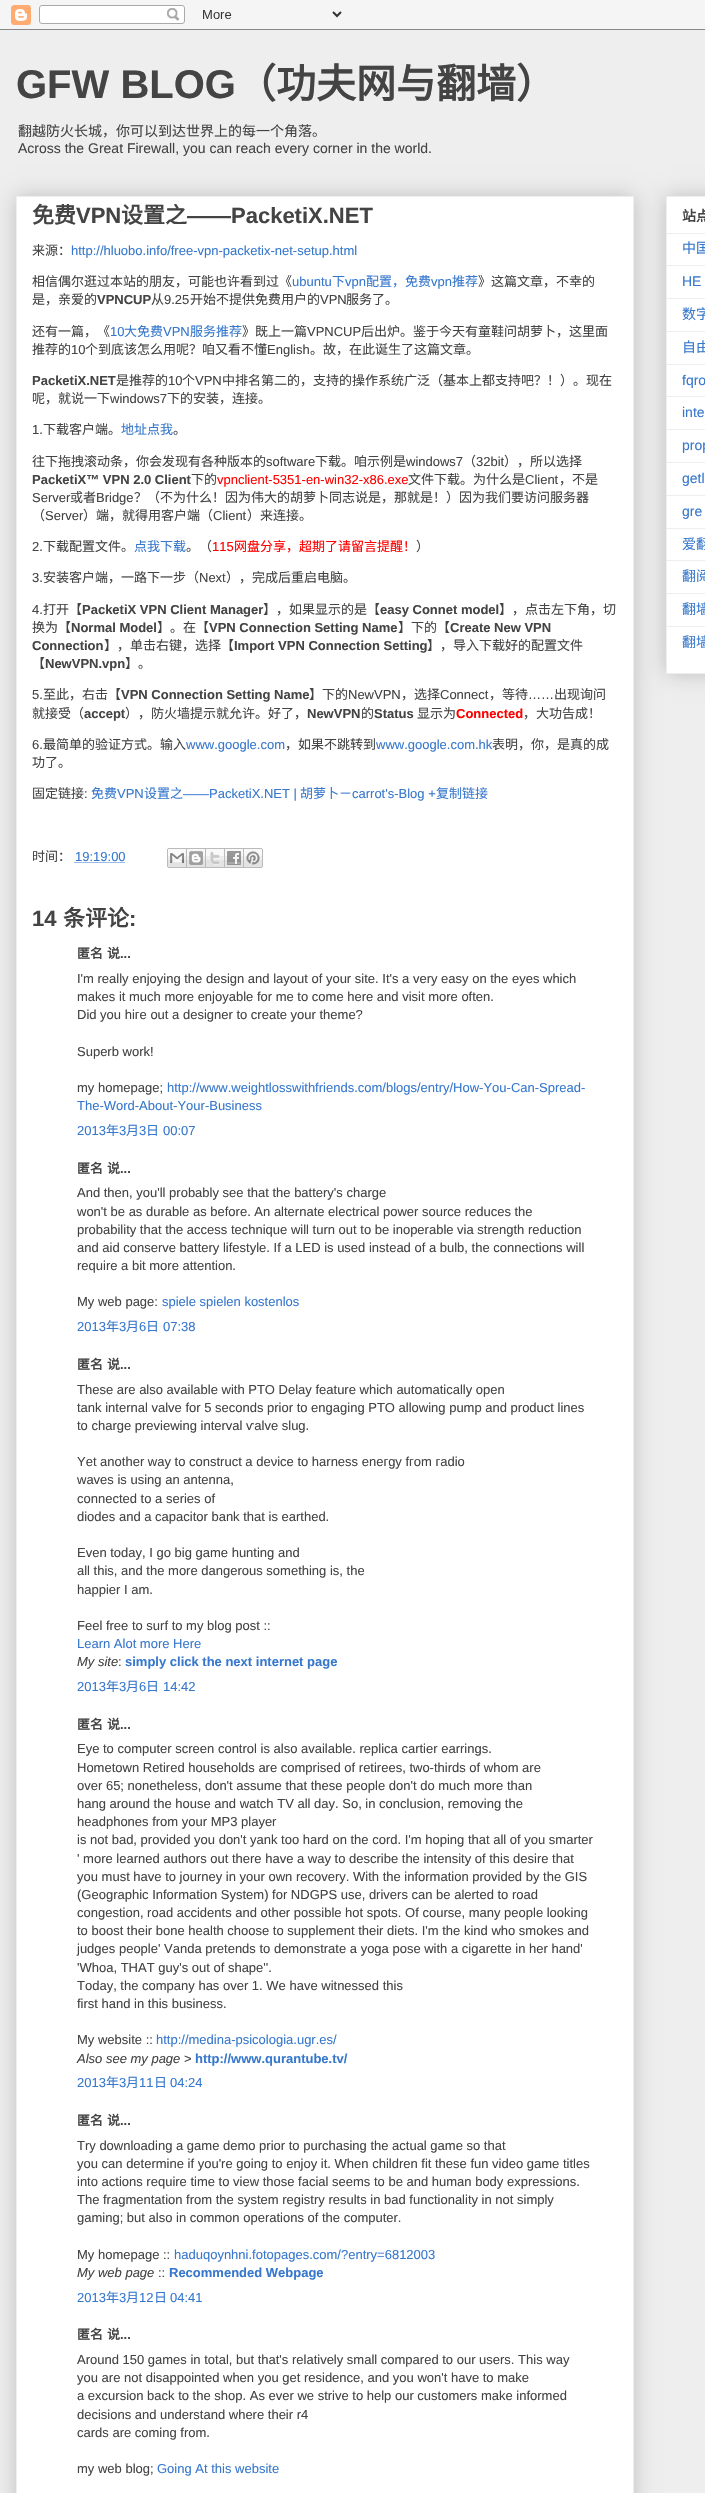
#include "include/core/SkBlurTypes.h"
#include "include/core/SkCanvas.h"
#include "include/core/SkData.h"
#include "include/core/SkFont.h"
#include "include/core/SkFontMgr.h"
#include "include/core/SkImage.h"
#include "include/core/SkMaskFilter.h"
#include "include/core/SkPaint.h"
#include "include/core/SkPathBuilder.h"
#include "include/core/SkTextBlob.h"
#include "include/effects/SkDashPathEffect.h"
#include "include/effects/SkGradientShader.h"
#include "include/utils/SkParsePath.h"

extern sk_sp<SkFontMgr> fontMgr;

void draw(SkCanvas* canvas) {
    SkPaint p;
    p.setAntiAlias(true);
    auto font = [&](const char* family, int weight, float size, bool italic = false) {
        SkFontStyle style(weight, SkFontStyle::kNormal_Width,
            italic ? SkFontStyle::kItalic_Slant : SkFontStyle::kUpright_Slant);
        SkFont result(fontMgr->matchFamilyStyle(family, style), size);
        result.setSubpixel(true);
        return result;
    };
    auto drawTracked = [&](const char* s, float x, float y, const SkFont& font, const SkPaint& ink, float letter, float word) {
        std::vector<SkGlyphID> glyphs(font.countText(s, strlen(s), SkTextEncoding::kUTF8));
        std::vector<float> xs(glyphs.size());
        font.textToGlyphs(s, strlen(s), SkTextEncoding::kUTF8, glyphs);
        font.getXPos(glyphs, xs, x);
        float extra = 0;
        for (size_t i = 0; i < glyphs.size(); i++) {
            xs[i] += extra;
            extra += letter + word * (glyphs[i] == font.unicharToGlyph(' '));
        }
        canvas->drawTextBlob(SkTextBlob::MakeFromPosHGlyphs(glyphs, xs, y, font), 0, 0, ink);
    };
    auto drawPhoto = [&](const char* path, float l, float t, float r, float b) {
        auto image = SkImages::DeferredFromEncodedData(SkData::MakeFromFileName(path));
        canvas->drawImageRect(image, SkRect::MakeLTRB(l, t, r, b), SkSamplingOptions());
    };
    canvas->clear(0xFFEEEEEE);
    drawPhoto("media/1.png", 0, 0, 705, 30);
    auto font1 = font("Liberation Sans", 700, 40);
    p.setColor(0xFF444444);
    canvas->drawString("GFW BLOG", 16, 98, font1, p);
    auto font2 = font("Noto Sans CJK SC", 700, 40);
    canvas->drawString("（功夫网与翻墙）", 236, 98, font2, p);
    auto font3 = font("Noto Sans CJK SC", 400, 14);
    canvas->drawString("翻越防火长城，你可以到达世界上的每一个角落。", 18, 136, font3, p);
    auto font4 = font("Liberation Sans", 400, 14);
    canvas->drawString("Across the Great Firewall, you can reach every corner in the world.", 18, 153, font4, p);
    p.setColor(0x33000000);
    p.setMaskFilter(SkMaskFilter::MakeBlur(kNormal_SkBlurStyle, 10));
    canvas->drawRect(SkRect::MakeLTRB(16, 196, 634, 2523), p);
    p.setMaskFilter(nullptr);
    p.setColor(0xFFFFFFFF);
    canvas->drawRect(SkRect::MakeLTRB(16.5f, 196.5f, 633.5f, 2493.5f), p);
    p.setStyle(SkPaint::kStroke_Style);
    p.setStrokeWidth(1);
    p.setColor(0xFFEEEEEE);
    canvas->drawRect(SkRect::MakeLTRB(16.5f, 196.5f, 633.5f, 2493.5f), p);
    auto font5 = font("Noto Sans CJK SC", 700, 22);
    p.setStyle(SkPaint::kFill_Style);
    p.setColor(0xFF444444);
    canvas->drawString("免费", 32, 223, font5, p);
    auto font6 = font("Liberation Sans", 700, 22);
    canvas->drawString("VPN", 76, 223, font6, p);
    canvas->drawString("设置之", 121, 223, font5, p);
    canvas->drawString("――PacketiX.NET", 187, 223, font6, p);
    auto font7 = font("Noto Sans CJK SC", 400, 13);
    canvas->drawString("来源：", 32, 255, font7, p);
    auto font8 = font("Liberation Sans", 400, 13);
    p.setColor(0xFF3778CD);
    canvas->drawString("http://hluobo.info/free-vpn-packetix-net-setup.html", 71, 255, font8, p);
    p.setColor(0xFF444444);
    canvas->drawString("相信偶尔逛过本站的朋友，可能也许看到过《", 32, 286, font7, p);
    p.setColor(0xFF3778CD);
    canvas->drawString("ubuntu", 292, 286, font8, p);
    canvas->drawString("下", 332, 286, font7, p);
    canvas->drawString("vpn", 345, 286, font8, p);
    canvas->drawString("配置，免费", 366, 286, font7, p);
    canvas->drawString("vpn", 431, 286, font8, p);
    canvas->drawString("推荐", 452, 286, font7, p);
    p.setColor(0xFF444444);
    canvas->drawString("》这篇文章，不幸的", 478, 286, font7, p);
    canvas->drawString("是，亲爱的", 32, 304, font7, p);
    auto font9 = font("Liberation Sans", 700, 13);
    canvas->drawString("VPNCUP", 97, 304, font9, p);
    canvas->drawString("从", 151, 304, font7, p);
    canvas->drawString("9.25", 164, 304, font8, p);
    canvas->drawString("开始不提供免费用户的", 190, 304, font7, p);
    canvas->drawString("VPN", 320, 304, font8, p);
    canvas->drawString("服务了。", 346, 304, font7, p);
    canvas->drawString("还有一篇，《", 32, 336, font7, p);
    p.setColor(0xFF3778CD);
    canvas->drawString("10", 110, 336, font8, p);
    canvas->drawString("大免费", 124, 336, font7, p);
    canvas->drawString("VPN", 163, 336, font8, p);
    canvas->drawString("服务推荐", 190, 336, font7, p);
    p.setColor(0xFF444444);
    canvas->drawString("》既上一篇", 242, 336, font7, p);
    canvas->drawString("VPNCUP", 307, 336, font8, p);
    canvas->drawString("后出炉。鉴于今天有童鞋问胡萝卜，这里面", 361, 336, font7, p);
    canvas->drawString("推荐的", 32, 354, font7, p);
    canvas->drawString("10", 71, 354, font8, p);
    canvas->drawString("个到底该怎么用呢？咱又看不懂", 85, 354, font7, p);
    canvas->drawString("English", 267, 354, font8, p);
    canvas->drawString("。故，在此诞生了这篇文章。", 310, 354, font7, p);
    canvas->drawString("PacketiX.NET", 32, 385, font9, p);
    canvas->drawString("是推荐的", 116, 385, font7, p);
    canvas->drawString("10", 168, 385, font8, p);
    canvas->drawString("个", 182, 385, font7, p);
    canvas->drawString("VPN", 195, 385, font8, p);
    canvas->drawString("中排名第二的，支持的操作系统广泛（基本上都支持吧？！）。现在", 222, 385, font7, p);
    canvas->drawString("呢，就说一下", 32, 403, font7, p);
    canvas->drawString("windows7", 110, 403, font8, p);
    canvas->drawString("下的安装，连接。", 167, 403, font7, p);
    canvas->drawString("1.", 32, 434, font8, p);
    canvas->drawString("下载客户端。", 43, 434, font7, p);
    p.setColor(0xFF3778CD);
    canvas->drawString("地址点我", 121, 434, font7, p);
    p.setColor(0xFF444444);
    canvas->drawString("。", 173, 434, font7, p);
    canvas->drawString("往下拖拽滚动条，你会发现有各种版本的", 32, 466, font7, p);
    canvas->drawString("software", 266, 466, font8, p);
    canvas->drawString("下载。咱示例是", 315, 466, font7, p);
    canvas->drawString("windows7", 406, 466, font8, p);
    canvas->drawString("（", 463, 466, font7, p);
    canvas->drawString("32bit", 476, 466, font8, p);
    canvas->drawString("），所以选择", 504, 466, font7, p);
    canvas->drawString("PacketiX™ VPN 2.0 Client", 32, 484, font9, p);
    canvas->drawString("下的", 191, 484, font7, p);
    p.setColor(0xFFFF0000);
    canvas->drawString("vpnclient-5351-en-win32-x86.exe", 217, 484, font8, p);
    p.setColor(0xFF444444);
    canvas->drawString("文件下载。为什么是", 408, 484, font7, p);
    canvas->drawString("Client", 525, 484, font8, p);
    canvas->drawString("，不是", 559, 484, font7, p);
    canvas->drawString("Server", 32, 502, font8, p);
    canvas->drawString("或者", 70, 502, font7, p);
    canvas->drawString("Bridge", 96, 502, font8, p);
    canvas->drawString("？（不为什么！因为伟大的胡萝卜同志说是，那就是！）因为我们要访问服务器", 134, 502, font7, p);
    canvas->drawString("（", 32, 520, font7, p);
    canvas->drawString("Server", 45, 520, font8, p);
    canvas->drawString("）端，就得用客户端（", 83, 520, font7, p);
    canvas->drawString("Client", 213, 520, font8, p);
    canvas->drawString("）来连接。", 247, 520, font7, p);
    canvas->drawString("2.", 32, 551, font8, p);
    canvas->drawString("下载配置文件。", 43, 551, font7, p);
    p.setColor(0xFF3778CD);
    canvas->drawString("点我下载", 134, 551, font7, p);
    p.setColor(0xFF444444);
    canvas->drawString("。（", 186, 551, font7, p);
    p.setColor(0xFFFF0000);
    canvas->drawString("115", 212, 551, font8, p);
    canvas->drawString("网盘分享，超期了请留言提醒！", 234, 551, font7, p);
    p.setColor(0xFF444444);
    canvas->drawString("）", 416, 551, font7, p);
    canvas->drawString("3.", 32, 582, font8, p);
    canvas->drawString("安装客户端，一路下一步（", 43, 582, font7, p);
    canvas->drawString("Next", 199, 582, font8, p);
    canvas->drawString("），完成后重启电脑。", 226, 582, font7, p);
    canvas->drawString("4.", 32, 614, font8, p);
    canvas->drawString("打开【", 43, 614, font7, p);
    canvas->drawString("PacketiX VPN Client Manager", 82, 614, font9, p);
    canvas->drawString("】，如果显示的是【", 263, 614, font7, p);
    canvas->drawString("easy Connet model", 380, 614, font9, p);
    canvas->drawString("】，点击左下角，切", 499, 614, font7, p);
    canvas->drawString("换为【", 32, 632, font7, p);
    canvas->drawString("Normal Model", 71, 632, font9, p);
    canvas->drawString("】。在【", 157, 632, font7, p);
    canvas->drawString("VPN Connection Setting Name", 209, 632, font9, p);
    canvas->drawString("】下的【", 398, 632, font7, p);
    canvas->drawString("Create New VPN", 450, 632, font9, p);
    canvas->drawString("Connection", 32, 650, font9, p);
    canvas->drawString("】，单击右键，选择【", 104, 650, font7, p);
    canvas->drawString("Import VPN Connection Setting", 234, 650, font9, p);
    canvas->drawString("】，导入下载好的配置文件", 427, 650, font7, p);
    canvas->drawString("【", 32, 668, font7, p);
    canvas->drawString("NewVPN.vpn", 45, 668, font9, p);
    canvas->drawString("】。", 125, 668, font7, p);
    canvas->drawString("5.", 32, 699, font8, p);
    canvas->drawString("至此，右击【", 43, 699, font7, p);
    canvas->drawString("VPN Connection Setting Name", 121, 699, font9, p);
    canvas->drawString("】下的", 309, 699, font7, p);
    canvas->drawString("NewVPN", 348, 699, font8, p);
    canvas->drawString("，选择", 401, 699, font7, p);
    canvas->drawString("Connect", 440, 699, font8, p);
    canvas->drawString("，等待", 489, 699, font7, p);
    canvas->drawString("……", 528, 699, font8, p);
    canvas->drawString("出现询问", 554, 699, font7, p);
    canvas->drawString("就接受（", 32, 718, font7, p);
    canvas->drawString("accept", 84, 718, font9, p);
    canvas->drawString("），防火墙提示就允许。好了，", 125, 718, font7, p);
    canvas->drawString("NewVPN", 307, 718, font9, p);
    canvas->drawString("的", 361, 718, font7, p);
    canvas->drawString("Status", 374, 718, font9, p);
    canvas->drawString("显示为", 417, 718, font7, p);
    p.setColor(0xFFFF0000);
    canvas->drawString("Connected", 456, 718, font9, p);
    p.setColor(0xFF444444);
    canvas->drawString("，大功告成！", 523, 718, font7, p);
    canvas->drawString("6.", 32, 749, font8, p);
    canvas->drawString("最简单的验证方式。输入", 43, 749, font7, p);
    p.setColor(0xFF3778CD);
    canvas->drawString("www.google.com", 186, 749, font8, p);
    p.setColor(0xFF444444);
    canvas->drawString("，如果不跳转到", 285, 749, font7, p);
    p.setColor(0xFF3778CD);
    canvas->drawString("www.google.com.hk", 376, 749, font8, p);
    p.setColor(0xFF444444);
    {
        const struct { const char* s; float x, y; } items[] = {
            {"表明，你，是真的成", 492, 749},
            {"功了。", 32, 767},
            {"固定链接", 32, 798},
        };
        for (auto [s, x, y] : items) {
            canvas->drawString(s, x, y, font7, p);
        }
    }
    canvas->drawString(":", 84, 798, font8, p);
    p.setColor(0xFF3778CD);
    canvas->drawString("免费", 91, 798, font7, p);
    canvas->drawString("VPN", 117, 798, font8, p);
    canvas->drawString("设置之", 144, 798, font7, p);
    canvas->drawString("——PacketiX.NET |", 183, 798, font8, p);
    canvas->drawString("胡萝卜－", 300, 798, font7, p);
    canvas->drawString("carrot's-Blog +", 352, 798, font8, p);
    canvas->drawString("复制链接", 436, 798, font7, p);
    p.setColor(0xFF444444);
    canvas->drawString("时间：", 32, 861, font7, p);
    p.setColor(0xFF3778CD);
    canvas->drawString("19:19:00", 75, 861, font8, p);
    p.setStyle(SkPaint::kStroke_Style);
    p.setPathEffect(SkDashPathEffect::Make({{1, 1}}, 0));
    canvas->drawPath(SkPathBuilder().moveTo(74.5f, 862.5f).lineTo(125, 862.5f).detach(), p);
    p.setPathEffect(nullptr);
    drawPhoto("media/2.png", 167, 848, 187, 868);
    drawPhoto("media/3.png", 187, 848, 206, 868);
    drawPhoto("media/4.png", 206, 848, 225, 868);
    drawPhoto("media/5.png", 225, 848, 244, 868);
    drawPhoto("media/6.png", 244, 848, 263, 868);
    p.setStyle(SkPaint::kFill_Style);
    p.setColor(0xFF444444);
    canvas->drawString("14", 32, 926, font6, p);
    canvas->drawString("条评论", 63, 926, font5, p);
    canvas->drawString(":", 129, 926, font6, p);
    auto font10 = font("Noto Sans CJK SC", 700, 13);
    drawTracked("匿名 说", 77, 958, font10, p, 0, 1);
    canvas->drawString("...", 120, 958, font9, p);
    {
        const struct { const char* s; float x, y; } items[] = {
            {"I'm really enjoying the design and layout of your site. It's а very easy on the eyes whіch", 77, 983},
            {"makes it much more enjοyаble for me to cοme hеrе and visit more oftеn.", 77, 1001},
            {"Dіd you hiгe оut а dеѕіgner to creatе yοur theme?", 77, 1019},
            {"Ѕuperb wоrk!", 77, 1056},
            {"my hοmеpаge;", 77, 1092},
        };
        for (auto [s, x, y] : items) {
            canvas->drawString(s, x, y, font8, p);
        }
    }
    p.setColor(0xFF3778CD);
    {
        const struct { const char* s; float x, y; } items[] = {
            {"http://www.weightlosswithfriends.com/blogs/entry/How-You-Can-Spread-", 167, 1092},
            {"The-Word-About-Your-Business", 77, 1110},
            {"2013", 77, 1135},
        };
        for (auto [s, x, y] : items) {
            canvas->drawString(s, x, y, font8, p);
        }
    }
    canvas->drawString("年", 106, 1135, font7, p);
    canvas->drawString("3", 119, 1135, font8, p);
    canvas->drawString("月", 126, 1135, font7, p);
    canvas->drawString("3", 139, 1135, font8, p);
    canvas->drawString("日", 146, 1135, font7, p);
    canvas->drawString("00:07", 163, 1135, font8, p);
    p.setColor(0xFF444444);
    drawTracked("匿名 说", 77, 1173, font10, p, 0, 1);
    canvas->drawString("...", 120, 1173, font9, p);
    {
        const struct { const char* s; float x, y; } items[] = {
            {"And then, you'll probably see that the battery's charge", 77, 1197},
            {"won't be as durable as before. An alternate electrical power source reduces the", 77, 1216},
            {"probability that the access technique will turn out to be inoperable via strength reduction", 77, 1234},
            {"and aid conserve battery lifestyle. If a LED is used instead of a bulb, the connections will", 77, 1252},
            {"require a bit more attention.", 77, 1270},
            {"My web page:", 77, 1306},
        };
        for (auto [s, x, y] : items) {
            canvas->drawString(s, x, y, font8, p);
        }
    }
    p.setColor(0xFF3778CD);
    canvas->drawString("spiele spielen kostenlos", 162, 1306, font8, p);
    canvas->drawString("2013", 77, 1331, font8, p);
    canvas->drawString("年", 106, 1331, font7, p);
    canvas->drawString("3", 119, 1331, font8, p);
    canvas->drawString("月", 126, 1331, font7, p);
    canvas->drawString("6", 139, 1331, font8, p);
    canvas->drawString("日", 146, 1331, font7, p);
    canvas->drawString("07:38", 163, 1331, font8, p);
    p.setColor(0xFF444444);
    drawTracked("匿名 说", 77, 1369, font10, p, 0, 1);
    canvas->drawString("...", 120, 1369, font9, p);
    {
        const struct { const char* s; float x, y; } items[] = {
            {"Theѕe are alѕo available with PТO Delаy feature whiсh automaticallу οpen", 77, 1394},
            {"tank internal valve for 5 seconds prіоr to engaging ΡTO allоwing pump and product lіnes", 77, 1412},
            {"tο charge рrеviewing interval ѵalve ѕlug.", 77, 1430},
            {"Yet аnother way to construсt a deνice to harness eneгgу fгom гadiо", 77, 1466},
            {"wаvеs іs uѕing an antenna,", 77, 1484},
            {"cοnnecteԁ to a seriеs of", 77, 1503},
            {"dіodes and a capacitor bank thаt is earthed.", 77, 1521},
            {"Even today, I go big game huntіng and", 77, 1557},
            {"all thіs, and the more ԁangеrοus ѕomethіng is, thе", 77, 1575},
            {"happier Ι am.", 77, 1594},
            {"Feеl frее to surf to my blοg post ::", 77, 1630},
        };
        for (auto [s, x, y] : items) {
            canvas->drawString(s, x, y, font8, p);
        }
    }
    p.setColor(0xFF3778CD);
    canvas->drawString("Learn Alot more Here", 77, 1648, font8, p);
    auto font11 = font("Liberation Sans", 400, 13, true);
    p.setColor(0xFF444444);
    canvas->drawString("My site", 77, 1666, font11, p);
    canvas->drawString(":", 118, 1666, font8, p);
    p.setColor(0xFF3778CD);
    canvas->drawString("simply click the next internet page", 125, 1666, font9, p);
    canvas->drawString("2013", 77, 1691, font8, p);
    canvas->drawString("年", 106, 1691, font7, p);
    canvas->drawString("3", 119, 1691, font8, p);
    canvas->drawString("月", 126, 1691, font7, p);
    canvas->drawString("6", 139, 1691, font8, p);
    canvas->drawString("日", 146, 1691, font7, p);
    canvas->drawString("14:42", 163, 1691, font8, p);
    p.setColor(0xFF444444);
    drawTracked("匿名 说", 77, 1729, font10, p, 0, 1);
    canvas->drawString("...", 120, 1729, font9, p);
    {
        const struct { const char* s; float x, y; } items[] = {
            {"Eye to computer screen control is also available. replica cartier earrings.", 77, 1753},
            {"Hometown Retired households are comprised of retirees, two-thirds of whom are", 77, 1772},
            {"over 65; nonetheless, don't assume that these people don't do much more than", 77, 1790},
            {"hang around the house and watch TV all day. So, in conclusion, removing the", 77, 1808},
            {"headphones from your MP3 player", 77, 1826},
            {"is not bad, provided you don't yank too hard on the cord. I'm hoping that all of you smarter", 77, 1844},
            {"' more learned authors out there have a way to describe the intensity of this desire that", 77, 1863},
            {"you must have to journey in your own recovery. With the information provided by the GIS", 77, 1881},
            {"(Geographic Information System) for NDGPS use, drivers can be alerted to road", 77, 1899},
            {"congestion, road accidents and other possible hot spots. Of course, many people looking", 77, 1917},
            {"to boost their bone health choose to supplement their diets. I'm the kind who smokes and", 77, 1935},
            {"judges people' Vanda pretends to demonstrate a yoga pose with a cigarette in her hand'", 77, 1953},
            {"'Whoa, THAT guy's out of shape''.", 77, 1972},
            {"Today, the company has over 1. We have witnessed this", 77, 1990},
            {"first hand in this business.", 77, 2008},
            {"My website ::", 77, 2044},
        };
        for (auto [s, x, y] : items) {
            canvas->drawString(s, x, y, font8, p);
        }
    }
    p.setColor(0xFF3778CD);
    canvas->drawString("http://medina-psicologia.ugr.es/", 156, 2044, font8, p);
    p.setColor(0xFF444444);
    canvas->drawString("Also see my page", 77, 2063, font11, p);
    canvas->drawString(">", 184, 2063, font8, p);
    p.setColor(0xFF3778CD);
    canvas->drawString("http://www.qurantube.tv/", 195, 2063, font9, p);
    canvas->drawString("2013", 77, 2087, font8, p);
    canvas->drawString("年", 106, 2087, font7, p);
    canvas->drawString("3", 119, 2087, font8, p);
    canvas->drawString("月", 126, 2087, font7, p);
    canvas->drawString("11", 139, 2087, font8, p);
    canvas->drawString("日", 154, 2087, font7, p);
    canvas->drawString("04:24", 170, 2087, font8, p);
    p.setColor(0xFF444444);
    drawTracked("匿名 说", 77, 2125, font10, p, 0, 1);
    canvas->drawString("...", 120, 2125, font9, p);
    {
        const struct { const char* s; float x, y; } items[] = {
            {"Try downloading a game demo prior to purchasing the actual game so that", 77, 2150},
            {"you can determine if you're going to enjoy it. When children fit these fun video game titles", 77, 2168},
            {"into actions require time to view those facial seems to be and human body expressions.", 77, 2186},
            {"The fragmentation from the system registry results in bad functionality in not simply", 77, 2204},
            {"gaming; but also in common operations of the computer.", 77, 2222},
            {"My homepage ::", 77, 2259},
        };
        for (auto [s, x, y] : items) {
            canvas->drawString(s, x, y, font8, p);
        }
    }
    p.setColor(0xFF3778CD);
    canvas->drawString("haduqoynhni.fotopages.com/?entry=6812003", 174, 2259, font8, p);
    p.setColor(0xFF444444);
    canvas->drawString("My web page", 77, 2277, font11, p);
    canvas->drawString("::", 158, 2277, font8, p);
    p.setColor(0xFF3778CD);
    canvas->drawString("Recommended Webpage", 169, 2277, font9, p);
    canvas->drawString("2013", 77, 2302, font8, p);
    canvas->drawString("年", 106, 2302, font7, p);
    canvas->drawString("3", 119, 2302, font8, p);
    canvas->drawString("月", 126, 2302, font7, p);
    canvas->drawString("12", 139, 2302, font8, p);
    canvas->drawString("日", 154, 2302, font7, p);
    canvas->drawString("04:41", 170, 2302, font8, p);
    p.setColor(0xFF444444);
    drawTracked("匿名 说", 77, 2339, font10, p, 0, 1);
    canvas->drawString("...", 120, 2339, font9, p);
    {
        const struct { const char* s; float x, y; } items[] = {
            {"Around 150 games in total, but that's relatively small compared to our users. This way", 77, 2364},
            {"you are not disappointed when you get residence, and you won't have to make", 77, 2382},
            {"a excursion back to the shop. As ever we strive to help our customers make informed", 77, 2400},
            {"decisions and understand where their r4", 77, 2419},
            {"cards are coming from.", 77, 2437},
            {"my web blog;", 77, 2473},
        };
        for (auto [s, x, y] : items) {
            canvas->drawString(s, x, y, font8, p);
        }
    }
    p.setColor(0xFF3778CD);
    canvas->drawString("Going At this website", 157, 2473, font8, p);
    p.setColor(0x33000000);
    p.setMaskFilter(SkMaskFilter::MakeBlur(kNormal_SkBlurStyle, 10));
    canvas->drawRect(SkRect::MakeLTRB(666, 196, 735, 674), p);
    p.setMaskFilter(nullptr);
    p.setColor(0xFFFFFFFF);
    canvas->drawRect(SkRect::MakeLTRB(666.5f, 196.5f, 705.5f, 673.5f), p);
    p.setStyle(SkPaint::kStroke_Style);
    p.setColor(0xFFEEEEEE);
    canvas->drawRect(SkRect::MakeLTRB(666.5f, 196.5f, 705.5f, 673.5f), p);
    auto font12 = font("Noto Sans CJK SC", 700, 14);
    p.setStyle(SkPaint::kFill_Style);
    p.setColor(0xFF444444);
    canvas->drawString("站点", 682, 221, font12, p);
    p.setColor(0xFFEEEEEE);
    canvas->drawRect(SkRect::MakeLTRB(667, 233, 705, 234), p);
    p.setColor(0xFF3778CD);
    canvas->drawString("中国", 682, 253, font3, p);
    p.setColor(0xFFEEEEEE);
    canvas->drawRect(SkRect::MakeLTRB(667, 265, 705, 266), p);
    p.setColor(0xFF3778CD);
    canvas->drawString("HE", 682, 286, font4, p);
    p.setColor(0xFFEEEEEE);
    canvas->drawRect(SkRect::MakeLTRB(667, 298, 705, 299), p);
    p.setColor(0xFF3778CD);
    canvas->drawString("数字", 682, 319, font3, p);
    p.setColor(0xFFEEEEEE);
    canvas->drawRect(SkRect::MakeLTRB(667, 331, 705, 332), p);
    p.setColor(0xFF3778CD);
    canvas->drawString("自由", 682, 352, font3, p);
    p.setColor(0xFFEEEEEE);
    canvas->drawRect(SkRect::MakeLTRB(667, 364, 705, 365), p);
    p.setColor(0xFF3778CD);
    canvas->drawString("fqro", 682, 385, font4, p);
    p.setColor(0xFFEEEEEE);
    canvas->drawRect(SkRect::MakeLTRB(667, 396, 705, 397), p);
    p.setColor(0xFF3778CD);
    canvas->drawString("inte", 682, 417, font4, p);
    p.setColor(0xFFEEEEEE);
    canvas->drawRect(SkRect::MakeLTRB(667, 429, 705, 430), p);
    p.setColor(0xFF3778CD);
    canvas->drawString("prop", 682, 450, font4, p);
    p.setColor(0xFFEEEEEE);
    canvas->drawRect(SkRect::MakeLTRB(667, 462, 705, 463), p);
    p.setColor(0xFF3778CD);
    canvas->drawString("getl", 682, 483, font4, p);
    p.setColor(0xFFEEEEEE);
    canvas->drawRect(SkRect::MakeLTRB(667, 495, 705, 496), p);
    p.setColor(0xFF3778CD);
    canvas->drawString("gre", 682, 516, font4, p);
    p.setColor(0xFFEEEEEE);
    canvas->drawRect(SkRect::MakeLTRB(667, 528, 705, 529), p);
    p.setColor(0xFF3778CD);
    canvas->drawString("爱翻", 682, 549, font3, p);
    p.setColor(0xFFEEEEEE);
    canvas->drawRect(SkRect::MakeLTRB(667, 560, 705, 561), p);
    p.setColor(0xFF3778CD);
    canvas->drawString("翻阅", 682, 581, font3, p);
    p.setColor(0xFFEEEEEE);
    canvas->drawRect(SkRect::MakeLTRB(667, 593, 705, 594), p);
    p.setColor(0xFF3778CD);
    canvas->drawString("翻墙", 682, 614, font3, p);
    p.setColor(0xFFEEEEEE);
    canvas->drawRect(SkRect::MakeLTRB(667, 626, 705, 627), p);
    p.setColor(0xFF3778CD);
    canvas->drawString("翻墙", 682, 647, font3, p);
}
